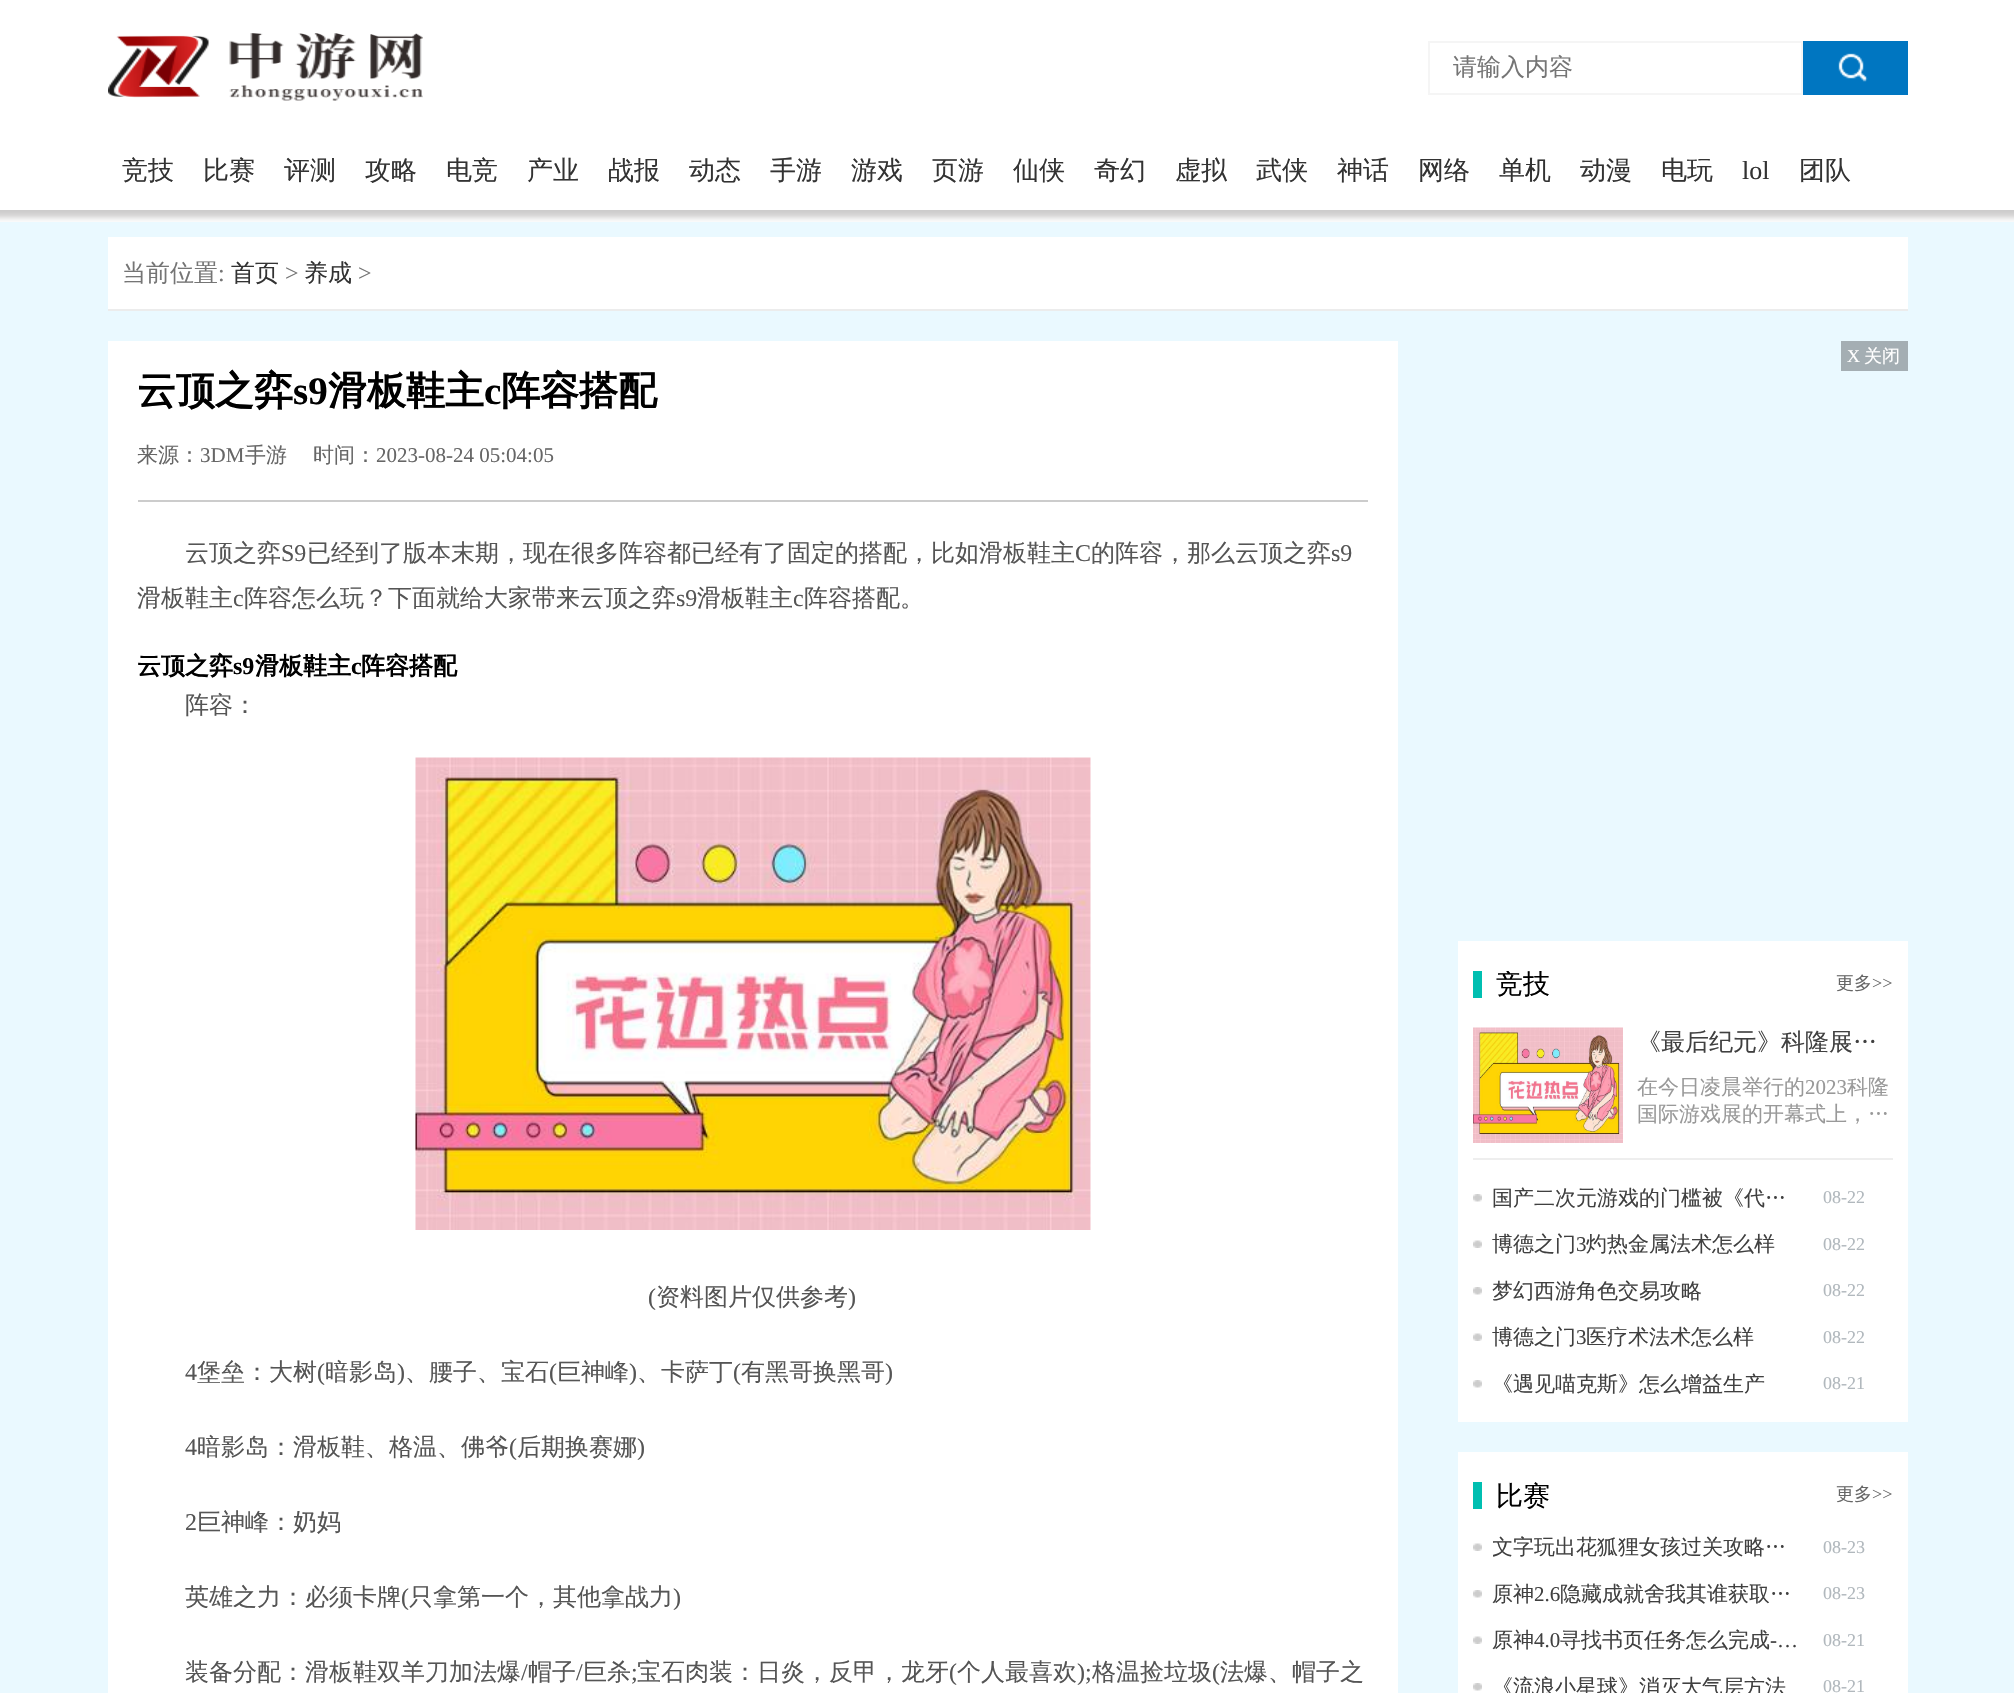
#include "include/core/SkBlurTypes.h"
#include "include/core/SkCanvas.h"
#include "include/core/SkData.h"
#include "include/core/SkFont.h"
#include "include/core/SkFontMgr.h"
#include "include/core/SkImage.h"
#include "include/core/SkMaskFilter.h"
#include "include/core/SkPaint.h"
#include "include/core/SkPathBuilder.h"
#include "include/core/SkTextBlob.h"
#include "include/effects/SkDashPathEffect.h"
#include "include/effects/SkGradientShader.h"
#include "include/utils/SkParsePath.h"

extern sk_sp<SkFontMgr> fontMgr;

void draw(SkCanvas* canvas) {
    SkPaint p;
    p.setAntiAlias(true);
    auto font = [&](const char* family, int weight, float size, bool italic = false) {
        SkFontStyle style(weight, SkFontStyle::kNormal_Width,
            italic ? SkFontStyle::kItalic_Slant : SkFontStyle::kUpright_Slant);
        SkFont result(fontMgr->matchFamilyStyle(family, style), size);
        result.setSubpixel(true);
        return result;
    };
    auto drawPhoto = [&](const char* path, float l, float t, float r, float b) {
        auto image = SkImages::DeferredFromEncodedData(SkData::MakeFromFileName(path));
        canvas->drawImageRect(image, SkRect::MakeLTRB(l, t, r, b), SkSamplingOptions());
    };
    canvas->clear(0xFFEAF9FF);
    p.setColor(0xFFFFFFFF);
    canvas->drawRect(SkRect::MakeLTRB(0, 0, 2014, 222), p);
    drawPhoto("media/1.png", 0, 210, 2014, 222);
    drawPhoto("media/2.png", 108, 33, 423, 101);
    p.setStyle(SkPaint::kStroke_Style);
    p.setStrokeWidth(2);
    p.setColor(0xFFF5F5F5);
    canvas->drawRect(SkRect::MakeLTRB(1429, 42, 1802, 94), p);
    auto font1 = font("WenQuanYi Zen Hei", 500, 24);
    p.setStyle(SkPaint::kFill_Style);
    p.setColor(0xFF757575);
    canvas->drawString("请输入内容", 1453, 75, font1, p);
    p.setColor(0xFF0076C1);
    canvas->drawRect(SkRect::MakeLTRB(1803, 41, 1908, 95), p);
    drawPhoto("media/3.png", 1838, 53, 1868, 82);
    auto font2 = font("WenQuanYi Zen Hei", 500, 26);
    p.setColor(0xFF333333);
    {
        const struct { const char* s; float x, y; } items[] = {
            {"竞技", 122, 179},
            {"比赛", 203, 179},
            {"评测", 284, 179},
            {"攻略", 365, 179},
            {"电竞", 446, 179},
            {"产业", 527, 179},
            {"战报", 608, 179},
            {"动态", 689, 179},
            {"手游", 770, 179},
            {"游戏", 851, 179},
            {"页游", 932, 179},
            {"仙侠", 1013, 179},
            {"奇幻", 1094, 179},
            {"虚拟", 1175, 179},
            {"武侠", 1256, 179},
            {"神话", 1337, 179},
            {"网络", 1418, 179},
            {"单机", 1499, 179},
            {"动漫", 1580, 179},
            {"电玩", 1661, 179},
        };
        for (auto [s, x, y] : items) {
            canvas->drawString(s, x, y, font2, p);
        }
    }
    auto font3 = font("Liberation Serif", 400, 26);
    canvas->drawString("lol", 1742, 179, font3, p);
    canvas->drawString("团队", 1799, 179, font2, p);
    p.setColor(0xFFFFFFFF);
    canvas->drawRect(SkRect::MakeLTRB(108, 237, 1908, 309), p);
    p.setColor(0xFFECECEC);
    canvas->drawRect(SkRect::MakeLTRB(108, 309, 1908, 311), p);
    p.setColor(0xFF757575);
    canvas->drawString("当前位置", 122, 281, font1, p);
    auto font4 = font("Liberation Serif", 400, 24);
    canvas->drawString(":", 218, 281, font4, p);
    p.setColor(0xFF333333);
    canvas->drawString("首页", 231, 281, font1, p);
    p.setColor(0xFF757575);
    canvas->drawString(">", 285, 281, font4, p);
    p.setColor(0xFF333333);
    canvas->drawString("养成", 304, 281, font1, p);
    p.setColor(0xFF757575);
    canvas->drawString(">", 358, 281, font4, p);
    p.setColor(0xFFFFFFFF);
    canvas->drawRect(SkRect::MakeLTRB(108, 341, 1398, 1693), p);
    auto font5 = font("WenQuanYi Zen Hei", 700, 39);
    p.setColor(0xFF000000);
    canvas->drawString("云顶之弈", 137, 404, font5, p);
    auto font6 = font("Liberation Serif", 700, 39);
    canvas->drawString("s9", 293, 404, font6, p);
    canvas->drawString("滑板鞋主", 328, 404, font5, p);
    canvas->drawString("c", 484, 404, font6, p);
    canvas->drawString("阵容搭配", 501, 404, font5, p);
    p.setColor(0xFFCCCCCC);
    canvas->drawRect(SkRect::MakeLTRB(138, 500, 1368, 502), p);
    auto font7 = font("WenQuanYi Zen Hei", 500, 21);
    p.setColor(0xFF666666);
    canvas->drawString("来源：", 137, 462, font7, p);
    auto font8 = font("Liberation Serif", 400, 21);
    canvas->drawString("3DM", 200, 462, font8, p);
    canvas->drawString("手游", 245, 462, font7, p);
    canvas->drawString("时间：", 313, 462, font7, p);
    canvas->drawString("2023-08-24 05:04:05", 376, 462, font8, p);
    p.setColor(0xFF555555);
    canvas->drawString("云顶之弈", 185, 561, font1, p);
    canvas->drawString("S9", 281, 561, font4, p);
    canvas->drawString("已经到了版本末期，现在很多阵容都已经有了固定的搭配，比如滑板鞋主", 307, 561, font1, p);
    canvas->drawString("C", 1075, 561, font4, p);
    canvas->drawString("的阵容，那么云顶之弈", 1091, 561, font1, p);
    canvas->drawString("s9", 1331, 561, font4, p);
    canvas->drawString("滑板鞋主", 137, 606, font1, p);
    canvas->drawString("c", 233, 606, font4, p);
    canvas->drawString("阵容怎么玩？下面就给大家带来云顶之弈", 244, 606, font1, p);
    canvas->drawString("s9", 676, 606, font4, p);
    canvas->drawString("滑板鞋主", 697, 606, font1, p);
    canvas->drawString("c", 793, 606, font4, p);
    canvas->drawString("阵容搭配。", 804, 606, font1, p);
    auto font9 = font("WenQuanYi Zen Hei", 700, 24);
    p.setColor(0xFF000000);
    canvas->drawString("云顶之弈", 137, 674, font9, p);
    auto font10 = font("Liberation Serif", 700, 24);
    canvas->drawString("s9", 233, 674, font10, p);
    canvas->drawString("滑板鞋主", 255, 674, font9, p);
    canvas->drawString("c", 351, 674, font10, p);
    canvas->drawString("阵容搭配", 361, 674, font9, p);
    p.setColor(0xFF555555);
    canvas->drawString("阵容：", 185, 713, font1, p);
    drawPhoto("media/4.png", 415, 757, 1091, 1230);
    canvas->drawString("(", 648, 1305, font4, p);
    canvas->drawString("资料图片仅供参考", 656, 1305, font1, p);
    canvas->drawString(")", 848, 1305, font4, p);
    canvas->drawString("4", 185, 1380, font4, p);
    canvas->drawString("堡垒：大树", 197, 1380, font1, p);
    canvas->drawString("(", 317, 1380, font4, p);
    canvas->drawString("暗影岛", 325, 1380, font1, p);
    canvas->drawString(")", 397, 1380, font4, p);
    canvas->drawString("、腰子、宝石", 405, 1380, font1, p);
    canvas->drawString("(", 549, 1380, font4, p);
    canvas->drawString("巨神峰", 557, 1380, font1, p);
    canvas->drawString(")", 629, 1380, font4, p);
    canvas->drawString("、卡萨丁", 637, 1380, font1, p);
    canvas->drawString("(", 733, 1380, font4, p);
    canvas->drawString("有黑哥换黑哥", 741, 1380, font1, p);
    canvas->drawString(")", 885, 1380, font4, p);
    canvas->drawString("4", 185, 1455, font4, p);
    canvas->drawString("暗影岛：滑板鞋、格温、佛爷", 197, 1455, font1, p);
    canvas->drawString("(", 509, 1455, font4, p);
    canvas->drawString("后期换赛娜", 517, 1455, font1, p);
    canvas->drawString(")", 637, 1455, font4, p);
    canvas->drawString("2", 185, 1530, font4, p);
    canvas->drawString("巨神峰：奶妈", 197, 1530, font1, p);
    canvas->drawString("英雄之力：必须卡牌", 185, 1605, font1, p);
    canvas->drawString("(", 401, 1605, font4, p);
    canvas->drawString("只拿第一个，其他拿战力", 409, 1605, font1, p);
    canvas->drawString(")", 673, 1605, font4, p);
    canvas->drawString("装备分配：滑板鞋双羊刀加法爆", 185, 1680, font1, p);
    canvas->drawString("/", 521, 1680, font4, p);
    canvas->drawString("帽子", 528, 1680, font1, p);
    canvas->drawString("/", 576, 1680, font4, p);
    canvas->drawString("巨杀", 583, 1680, font1, p);
    canvas->drawString(";", 631, 1680, font4, p);
    canvas->drawString("宝石肉装：日炎，反甲，龙牙", 637, 1680, font1, p);
    canvas->drawString("(", 949, 1680, font4, p);
    canvas->drawString("个人最喜欢", 957, 1680, font1, p);
    canvas->drawString(");", 1077, 1680, font4, p);
    canvas->drawString("格温捡垃圾", 1092, 1680, font1, p);
    canvas->drawString("(", 1212, 1680, font4, p);
    canvas->drawString("法爆、帽子之", 1220, 1680, font1, p);
    p.setColor(0xFFA4AEB3);
    canvas->drawRect(SkRect::MakeLTRB(1841, 341, 1908, 371), p);
    auto font11 = font("Liberation Serif", 400, 18);
    p.setColor(0xFFFFFFFF);
    canvas->drawString("X", 1847, 362, font11, p);
    auto font12 = font("WenQuanYi Zen Hei", 500, 18);
    canvas->drawString("关闭", 1864, 362, font12, p);
    canvas->drawRect(SkRect::MakeLTRB(1458, 941, 1908, 1422), p);
    p.setColor(0xFF00BFB1);
    canvas->drawRect(SkRect::MakeLTRB(1473, 971, 1482, 998), p);
    canvas->save();
    canvas->clipRect(SkRect::MakeLTRB(1473, 971, 1893, 998));
    auto font13 = font("WenQuanYi Zen Hei", 500, 27);
    p.setColor(0xFF000000);
    canvas->drawString("竞技", 1496, 993, font13, p);
    canvas->restore();
    p.setColor(0xFF666666);
    canvas->drawString("更多", 1836, 989, font12, p);
    canvas->drawString(">>", 1872, 989, font11, p);
    p.setColor(0xFFEEEEEE);
    canvas->drawRect(SkRect::MakeLTRB(1473, 1158, 1893, 1160), p);
    drawPhoto("media/5.png", 1473, 1027, 1623, 1143);
    p.setColor(0xFF404040);
    canvas->drawString("《最后纪元》科隆展…", 1637, 1050, font1, p);
    p.setColor(0xFF999999);
    canvas->drawString("在今日凌晨举行的", 1637, 1094, font7, p);
    canvas->drawString("2023", 1805, 1094, font8, p);
    canvas->drawString("科隆", 1847, 1094, font7, p);
    canvas->drawString("国际游戏展的开幕式上，…", 1637, 1121, font7, p);
    drawPhoto("media/6.png", 1473, 1194, 1482, 1202);
    p.setColor(0xFF404040);
    canvas->drawString("国产二次元游戏的门槛被《代…", 1492, 1205, font7, p);
    p.setColor(0xFFB1B8BD);
    canvas->drawString("08-22", 1823, 1203, font11, p);
    drawPhoto("media/7.png", 1473, 1240, 1482, 1248);
    p.setColor(0xFF404040);
    canvas->drawString("博德之门", 1492, 1251, font7, p);
    canvas->drawString("3", 1576, 1251, font8, p);
    canvas->drawString("灼热金属法术怎么样", 1586, 1251, font7, p);
    p.setColor(0xFFB1B8BD);
    canvas->drawString("08-22", 1823, 1250, font11, p);
    drawPhoto("media/6.png", 1473, 1287, 1482, 1295);
    p.setColor(0xFF404040);
    canvas->drawString("梦幻西游角色交易攻略", 1492, 1298, font7, p);
    p.setColor(0xFFB1B8BD);
    canvas->drawString("08-22", 1823, 1296, font11, p);
    drawPhoto("media/7.png", 1473, 1333, 1482, 1341);
    p.setColor(0xFF404040);
    canvas->drawString("博德之门", 1492, 1344, font7, p);
    canvas->drawString("3", 1576, 1344, font8, p);
    canvas->drawString("医疗术法术怎么样", 1586, 1344, font7, p);
    p.setColor(0xFFB1B8BD);
    canvas->drawString("08-22", 1823, 1343, font11, p);
    drawPhoto("media/6.png", 1473, 1380, 1482, 1388);
    p.setColor(0xFF404040);
    canvas->drawString("《遇见喵克斯》怎么增益生产", 1492, 1391, font7, p);
    p.setColor(0xFFB1B8BD);
    canvas->drawString("08-21", 1823, 1389, font11, p);
    p.setColor(0xFFFFFFFF);
    canvas->drawRect(SkRect::MakeLTRB(1458, 1452, 1908, 1693), p);
    p.setColor(0xFF00BFB1);
    canvas->drawRect(SkRect::MakeLTRB(1473, 1482, 1482, 1509), p);
    p.setColor(0xFF000000);
    canvas->drawString("比赛", 1496, 1505, font13, p);
    p.setColor(0xFF666666);
    canvas->drawString("更多", 1836, 1500, font12, p);
    canvas->drawString(">>", 1872, 1500, font11, p);
    drawPhoto("media/7.png", 1473, 1543, 1482, 1551);
    canvas->save();
    canvas->clipRect(SkRect::MakeLTRB(1493, 1524, 1803, 1571));
    p.setColor(0xFF404040);
    canvas->drawString("文字玩出花狐狸女孩过关攻略…", 1492, 1554, font7, p);
    canvas->restore();
    p.setColor(0xFFB1B8BD);
    canvas->drawString("08-23", 1823, 1553, font11, p);
    drawPhoto("media/6.png", 1473, 1590, 1482, 1598);
    p.setColor(0xFF404040);
    canvas->drawString("原神", 1492, 1601, font7, p);
    canvas->drawString("2.6", 1534, 1601, font8, p);
    canvas->drawString("隐藏成就舍我其谁获取…", 1560, 1601, font7, p);
    p.setColor(0xFFB1B8BD);
    canvas->drawString("08-23", 1823, 1599, font11, p);
    drawPhoto("media/7.png", 1473, 1636, 1482, 1644);
    p.setColor(0xFF404040);
    canvas->drawString("原神", 1492, 1647, font7, p);
    canvas->drawString("4.0", 1534, 1647, font8, p);
    canvas->drawString("寻找书页任务怎么完成", 1560, 1647, font7, p);
    canvas->drawString("-…", 1770, 1647, font8, p);
    p.setColor(0xFFB1B8BD);
    canvas->drawString("08-21", 1823, 1646, font11, p);
    drawPhoto("media/6.png", 1473, 1683, 1482, 1691);
    p.setColor(0xFF404040);
    canvas->drawString("《流浪小星球》消灭大气层方法", 1492, 1694, font7, p);
    p.setColor(0xFFB1B8BD);
    canvas->drawString("08-21", 1823, 1692, font11, p);
}
